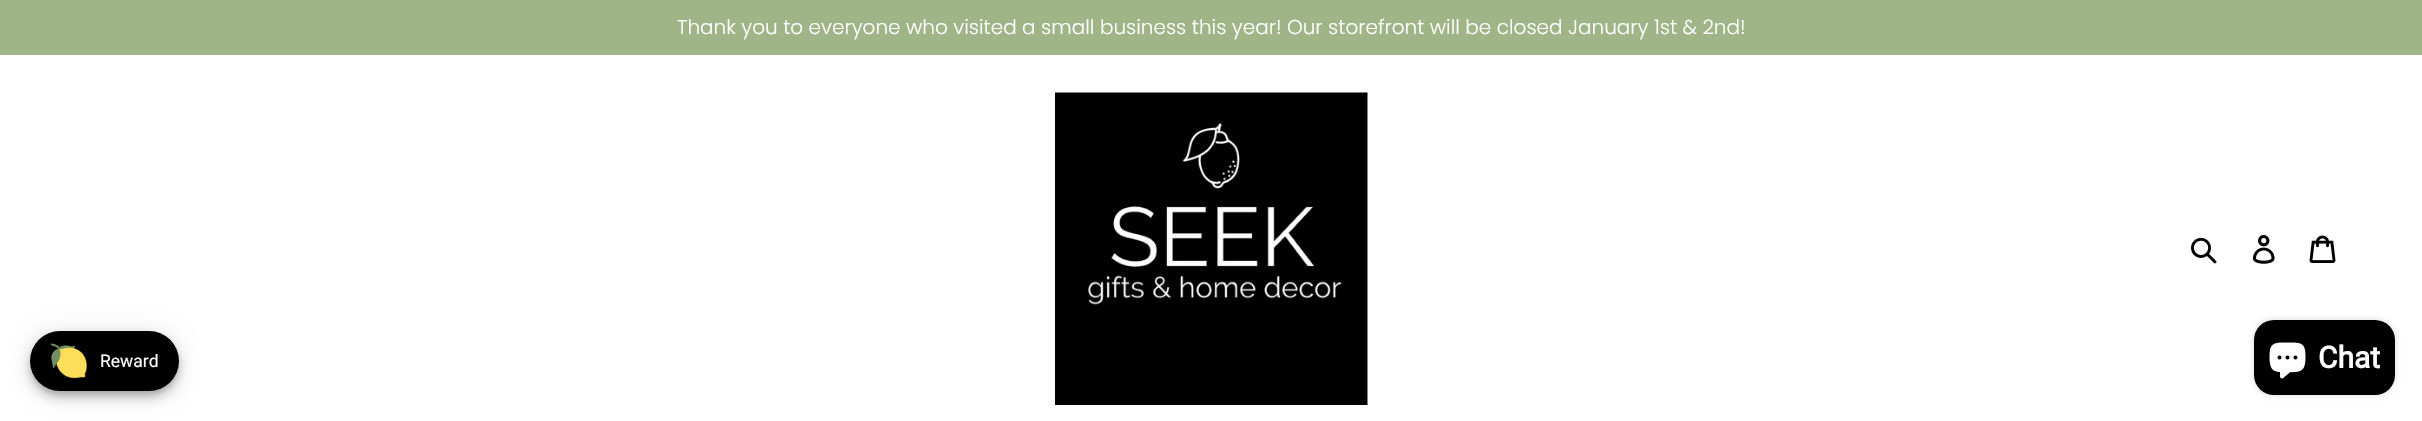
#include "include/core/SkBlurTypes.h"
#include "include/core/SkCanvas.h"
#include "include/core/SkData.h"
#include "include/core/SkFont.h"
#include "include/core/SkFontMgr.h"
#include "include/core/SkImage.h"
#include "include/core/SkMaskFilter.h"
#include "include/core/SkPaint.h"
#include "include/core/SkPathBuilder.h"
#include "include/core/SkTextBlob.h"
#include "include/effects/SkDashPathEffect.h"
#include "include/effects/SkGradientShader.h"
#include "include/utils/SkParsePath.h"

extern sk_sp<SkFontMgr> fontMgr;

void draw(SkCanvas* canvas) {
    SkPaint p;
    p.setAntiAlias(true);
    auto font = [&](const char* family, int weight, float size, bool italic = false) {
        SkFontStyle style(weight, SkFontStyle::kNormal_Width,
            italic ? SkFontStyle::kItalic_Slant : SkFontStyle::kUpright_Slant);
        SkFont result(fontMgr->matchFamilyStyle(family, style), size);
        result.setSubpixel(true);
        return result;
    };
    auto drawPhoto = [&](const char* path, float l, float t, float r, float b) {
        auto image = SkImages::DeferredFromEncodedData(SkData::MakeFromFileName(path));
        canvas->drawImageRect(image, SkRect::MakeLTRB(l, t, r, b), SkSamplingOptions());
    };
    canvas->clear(0xFFFFFFFF);
    p.setColor(0xFF9FB588);
    canvas->drawRect(SkRect::MakeLTRB(0, 0, 2422, 55), p);
    auto font1 = font("Poppins", 300, 20);
    p.setColor(0xFFFFFFFF);
    canvas->drawString("Thank you to everyone who visited a small business this year! Our storefront will be closed January 1st & 2nd!", 677, 34, font1, p);
    drawPhoto("media/1.png", 1055, 92, 1368, 405);
    drawPhoto("media/2.png", 2191, 237, 2217, 264);
    drawPhoto("media/3.png", 2252, 235, 2275, 264);
    drawPhoto("media/4.png", 2309, 235, 2336, 263);
    p.setColor(0x1F000000);
    p.setMaskFilter(SkMaskFilter::MakeBlur(kNormal_SkBlurStyle, 11));
    canvas->drawRoundRect(SkRect::MakeLTRB(30, 333, 179, 393), 30, 30, p);
    p.setMaskFilter(nullptr);
    p.setColor(0x24000000);
    p.setMaskFilter(SkMaskFilter::MakeBlur(kNormal_SkBlurStyle, 6));
    canvas->drawRoundRect(SkRect::MakeLTRB(30, 339, 179, 399), 30, 30, p);
    p.setMaskFilter(nullptr);
    p.setColor(0x33000000);
    p.setMaskFilter(SkMaskFilter::MakeBlur(kNormal_SkBlurStyle, 3));
    canvas->drawRoundRect(SkRect::MakeLTRB(31, 336, 178, 394), 29, 29, p);
    p.setMaskFilter(nullptr);
    p.setColor(0xFF000000);
    canvas->drawRoundRect(SkRect::MakeLTRB(30, 331, 179, 391), 30, 30, p);
    drawPhoto("media/5.png", 50, 343, 87, 379);
    auto font2 = font("Roboto", 400, 17.5f);
    p.setColor(0xFFFFFFFF);
    canvas->drawString("Reward", 100, 367, font2, p);
    p.setColor(0x26000000);
    p.setMaskFilter(SkMaskFilter::MakeBlur(kNormal_SkBlurStyle, 3));
    canvas->drawRoundRect(SkRect::MakeLTRB(2254, 320, 2395, 395), 20, 20, p);
    p.setMaskFilter(nullptr);
    p.setColor(0xFF000000);
    canvas->drawRoundRect(SkRect::MakeLTRB(2254, 320, 2395, 395), 20, 20, p);
    drawPhoto("media/6.png", 2269, 342, 2306, 379);
    auto font3 = font("Roboto", 700, 30);
    p.setColor(0xFFFFFFFF);
    canvas->drawString("Chat", 2318, 368, font3, p);
}
